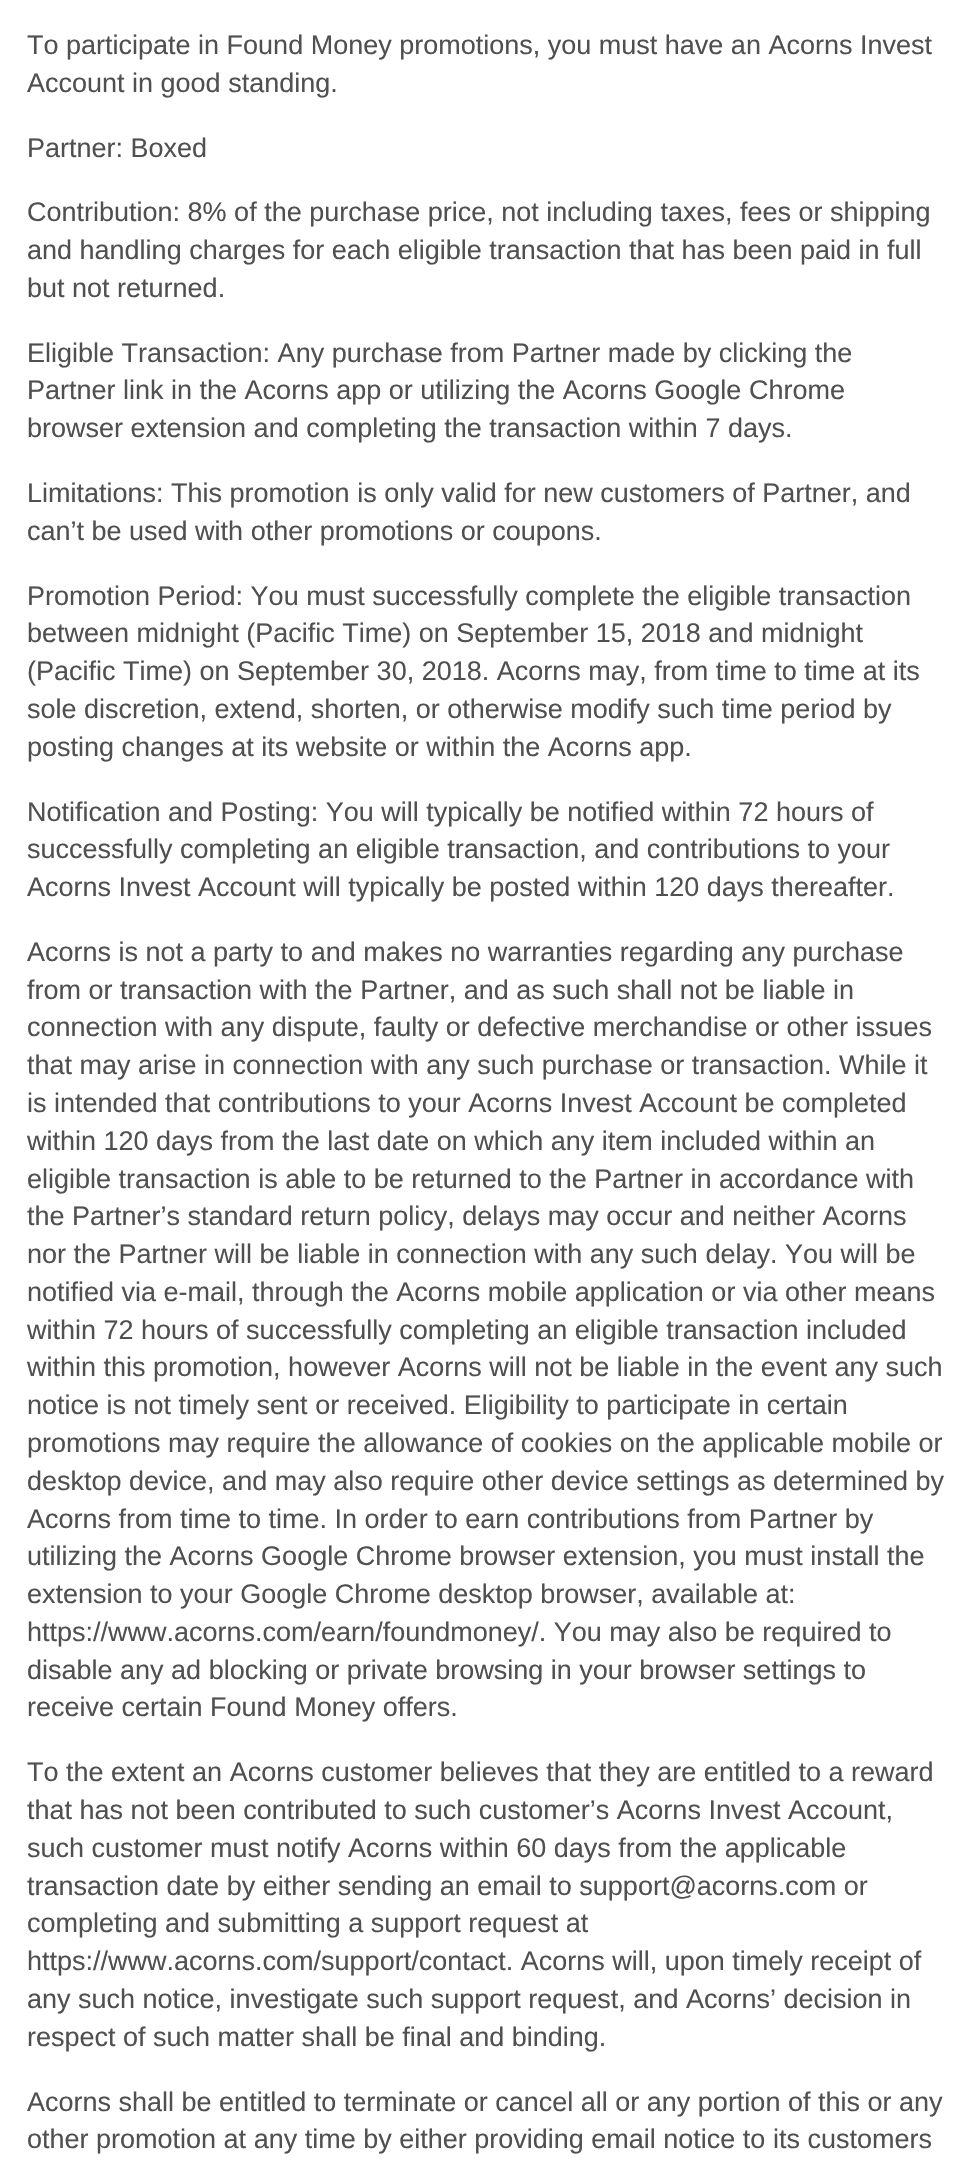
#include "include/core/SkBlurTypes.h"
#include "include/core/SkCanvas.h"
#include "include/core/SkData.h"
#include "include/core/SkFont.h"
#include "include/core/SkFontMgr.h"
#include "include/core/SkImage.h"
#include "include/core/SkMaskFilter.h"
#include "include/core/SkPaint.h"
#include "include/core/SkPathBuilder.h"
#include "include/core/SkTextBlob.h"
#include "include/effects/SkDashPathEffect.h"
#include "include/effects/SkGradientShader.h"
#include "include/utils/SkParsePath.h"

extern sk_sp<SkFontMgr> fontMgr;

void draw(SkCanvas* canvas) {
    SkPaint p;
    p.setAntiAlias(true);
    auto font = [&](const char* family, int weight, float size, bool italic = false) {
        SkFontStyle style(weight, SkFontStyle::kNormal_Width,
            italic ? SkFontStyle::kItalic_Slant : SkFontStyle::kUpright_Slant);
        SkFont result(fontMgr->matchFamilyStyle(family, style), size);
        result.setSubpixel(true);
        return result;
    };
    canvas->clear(0xFFFFFFFF);
    auto font1 = font("Liberation Sans", 400, 27);
    p.setColor(0xFF505050);
    {
        const struct { const char* s; float x, y; } items[] = {
            {"To participate in Found Money promotions, you must have an Acorns Invest", 27, 54},
            {"Account in good standing.", 27, 92},
            {"Partner: Boxed", 27, 157},
            {"Contribution: 8% of the purchase price, not including taxes, fees or shipping", 27, 221},
            {"and handling charges for each eligible transaction that has been paid in full", 27, 259},
            {"but not returned.", 27, 297},
            {"Eligible Transaction: Any purchase from Partner made by clicking the", 27, 362},
            {"Partner link in the Acorns app or utilizing the Acorns Google Chrome", 27, 399},
            {"browser extension and completing the transaction within 7 days.", 27, 437},
            {"Limitations: This promotion is only valid for new customers of Partner, and", 27, 502},
            {"can’t be used with other promotions or coupons.", 27, 540},
            {"Promotion Period: You must successfully complete the eligible transaction", 27, 605},
            {"between midnight (Pacific Time) on September 15, 2018 and midnight", 27, 642},
            {"(Pacific Time) on September 30, 2018. Acorns may, from time to time at its", 27, 680},
            {"sole discretion, extend, shorten, or otherwise modify such time period by", 27, 718},
            {"posting changes at its website or within the Acorns app.", 27, 756},
            {"Notification and Posting: You will typically be notified within 72 hours of", 27, 821},
            {"successfully completing an eligible transaction, and contributions to your", 27, 858},
            {"Acorns Invest Account will typically be posted within 120 days thereafter.", 27, 896},
            {"Acorns is not a party to and makes no warranties regarding any purchase", 27, 961},
            {"from or transaction with the Partner, and as such shall not be liable in", 27, 999},
            {"connection with any dispute, faulty or defective merchandise or other issues", 27, 1036},
            {"that may arise in connection with any such purchase or transaction. While it", 27, 1074},
            {"is intended that contributions to your Acorns Invest Account be completed", 27, 1112},
            {"within 120 days from the last date on which any item included within an", 27, 1150},
            {"eligible transaction is able to be returned to the Partner in accordance with", 27, 1188},
            {"the Partner’s standard return policy, delays may occur and neither Acorns", 27, 1225},
            {"nor the Partner will be liable in connection with any such delay. You will be", 27, 1263},
            {"notified via e-mail, through the Acorns mobile application or via other means", 27, 1301},
            {"within 72 hours of successfully completing an eligible transaction included", 27, 1339},
            {"within this promotion, however Acorns will not be liable in the event any such", 27, 1376},
            {"notice is not timely sent or received. Eligibility to participate in certain", 27, 1414},
            {"promotions may require the allowance of cookies on the applicable mobile or", 27, 1452},
            {"desktop device, and may also require other device settings as determined by", 27, 1490},
            {"Acorns from time to time. In order to earn contributions from Partner by", 27, 1528},
            {"utilizing the Acorns Google Chrome browser extension, you must install the", 27, 1565},
            {"extension to your Google Chrome desktop browser, available at:", 27, 1603},
            {"https://www.acorns.com/earn/foundmoney/. You may also be required to", 27, 1641},
            {"disable any ad blocking or private browsing in your browser settings to", 27, 1679},
            {"receive certain Found Money offers.", 27, 1716},
            {"To the extent an Acorns customer believes that they are entitled to a reward", 27, 1781},
            {"that has not been contributed to such customer’s Acorns Invest Account,", 27, 1819},
            {"such customer must notify Acorns within 60 days from the applicable", 27, 1857},
            {"transaction date by either sending an email to support@acorns.com or", 27, 1895},
            {"completing and submitting a support request at", 27, 1932},
            {"https://www.acorns.com/support/contact. Acorns will, upon timely receipt of", 27, 1970},
            {"any such notice, investigate such support request, and Acorns’ decision in", 27, 2008},
            {"respect of such matter shall be final and binding.", 27, 2046},
            {"Acorns shall be entitled to terminate or cancel all or any portion of this or any", 27, 2111},
            {"other promotion at any time by either providing email notice to its customers", 27, 2148},
        };
        for (auto [s, x, y] : items) {
            canvas->drawString(s, x, y, font1, p);
        }
    }
}
